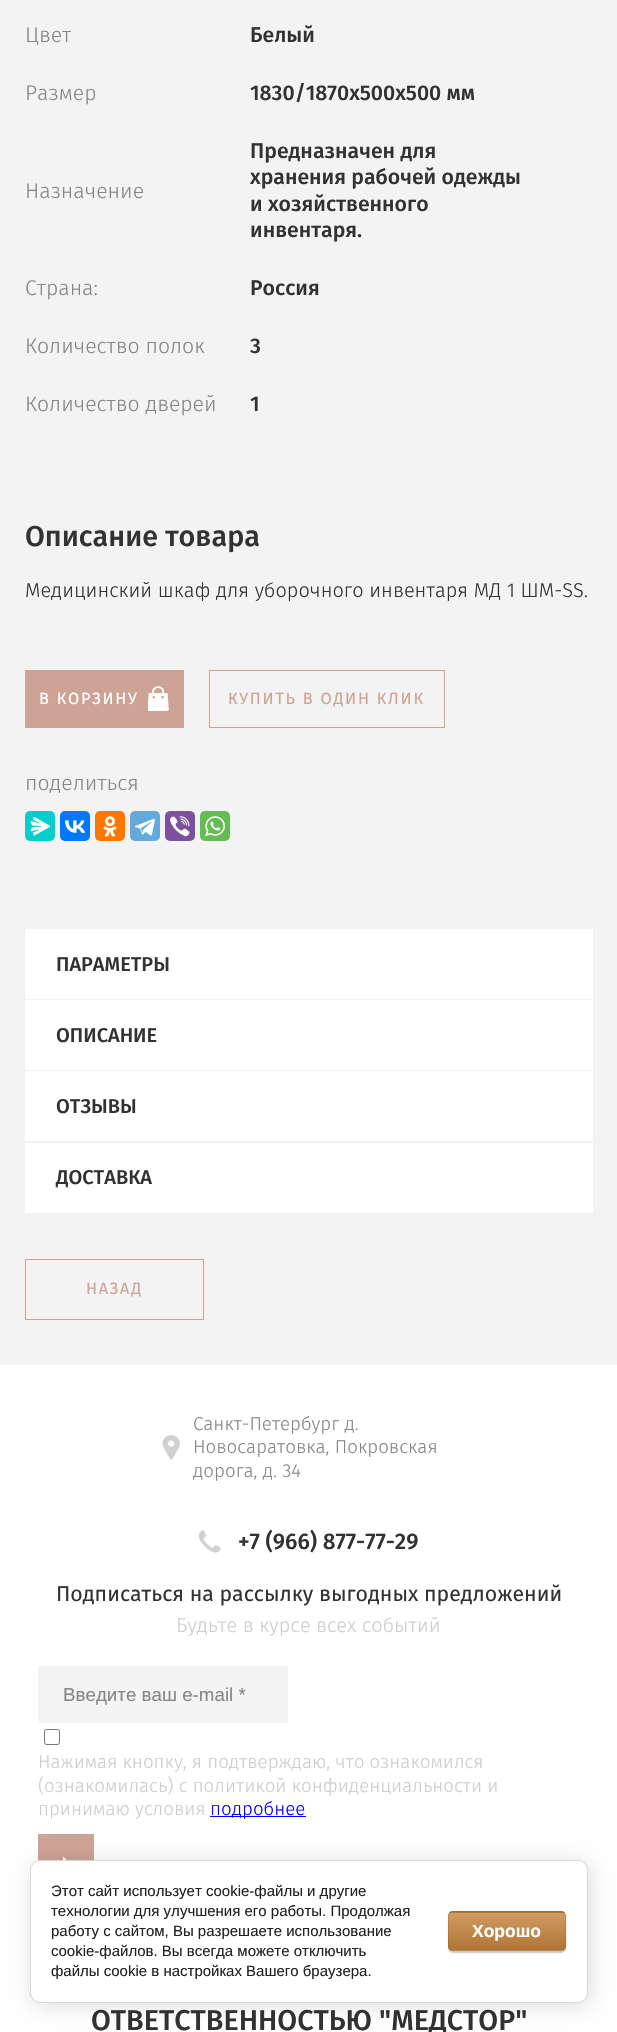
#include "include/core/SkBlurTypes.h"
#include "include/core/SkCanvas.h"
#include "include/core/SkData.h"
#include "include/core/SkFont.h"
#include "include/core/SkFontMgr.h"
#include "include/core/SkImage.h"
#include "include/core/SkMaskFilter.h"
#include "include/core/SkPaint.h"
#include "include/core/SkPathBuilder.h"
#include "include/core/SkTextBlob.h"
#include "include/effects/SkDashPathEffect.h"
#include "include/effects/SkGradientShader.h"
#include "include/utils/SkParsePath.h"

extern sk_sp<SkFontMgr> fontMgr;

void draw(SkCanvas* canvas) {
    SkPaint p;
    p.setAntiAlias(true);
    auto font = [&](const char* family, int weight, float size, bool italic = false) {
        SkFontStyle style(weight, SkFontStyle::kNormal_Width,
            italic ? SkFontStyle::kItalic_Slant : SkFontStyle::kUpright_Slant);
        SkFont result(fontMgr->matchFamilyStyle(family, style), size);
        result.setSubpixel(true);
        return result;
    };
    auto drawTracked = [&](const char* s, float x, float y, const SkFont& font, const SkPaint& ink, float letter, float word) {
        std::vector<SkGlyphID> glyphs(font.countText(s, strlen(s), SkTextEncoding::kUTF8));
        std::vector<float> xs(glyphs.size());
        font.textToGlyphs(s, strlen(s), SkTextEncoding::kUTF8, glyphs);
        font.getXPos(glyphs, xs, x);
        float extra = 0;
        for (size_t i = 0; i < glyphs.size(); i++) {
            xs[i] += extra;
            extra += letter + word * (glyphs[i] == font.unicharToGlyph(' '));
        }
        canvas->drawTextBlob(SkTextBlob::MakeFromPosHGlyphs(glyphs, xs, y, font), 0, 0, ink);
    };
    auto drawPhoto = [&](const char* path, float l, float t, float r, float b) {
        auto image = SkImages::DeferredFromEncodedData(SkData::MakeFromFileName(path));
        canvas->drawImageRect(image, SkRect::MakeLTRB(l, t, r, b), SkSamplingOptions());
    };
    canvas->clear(0xFFF3F3F3);
    auto font1 = font("Fira Sans", 300, 21.25f);
    p.setColor(0xFF868686);
    canvas->drawString("Цвет", 25, 42, font1, p);
    auto font2 = font("Fira Sans", 500, 21.25f);
    p.setColor(0xFF323232);
    canvas->drawString("Белый", 250, 42, font2, p);
    p.setColor(0xFF868686);
    canvas->drawString("Размер", 25, 100, font1, p);
    p.setColor(0xFF323232);
    canvas->drawString("1830/1870x500x500 мм", 250, 100, font2, p);
    p.setColor(0xFF868686);
    canvas->drawString("Назначение", 25, 198, font1, p);
    p.setColor(0xFF323232);
    {
        const struct { const char* s; float x, y; } items[] = {
            {"Предназначен для", 250, 158},
            {"хранения рабочей одежды", 250, 184},
            {"и хозяйственного", 250, 211},
            {"инвентаря.", 250, 237},
        };
        for (auto [s, x, y] : items) {
            canvas->drawString(s, x, y, font2, p);
        }
    }
    p.setColor(0xFF868686);
    canvas->drawString("Страна:", 25, 295, font1, p);
    p.setColor(0xFF323232);
    canvas->drawString("Россия", 250, 295, font2, p);
    p.setColor(0xFF868686);
    canvas->drawString("Количество полок", 25, 353, font1, p);
    p.setColor(0xFF323232);
    canvas->drawString("3", 250, 353, font2, p);
    p.setColor(0xFF868686);
    canvas->drawString("Количество дверей", 25, 411, font1, p);
    p.setColor(0xFF323232);
    canvas->drawString("1", 250, 411, font2, p);
    auto font3 = font("Fira Sans", 500, 28.75f);
    canvas->drawString("Описание товара", 25, 546, font3, p);
    auto font4 = font("Fira Sans", 300, 20);
    canvas->drawString("Медицинский шкаф для уборочного инвентаря МД 1 ШМ-SS.", 25, 597, font4, p);
    p.setColor(0xFFCDA395);
    canvas->drawRect(SkRect::MakeLTRB(25, 670, 184, 728), p);
    drawPhoto("media/1.png", 148, 686, 169, 711);
    auto font5 = font("Fira Sans", 400, 16.25f);
    p.setColor(0xFFFFFFFF);
    drawTracked("В КОРЗИНУ", 39, 704, font5, p, 1.75f, 0);
    p.setStyle(SkPaint::kStroke_Style);
    p.setStrokeWidth(1);
    p.setColor(0xFFCDA395);
    canvas->drawRect(SkRect::MakeLTRB(209.5f, 670.5f, 444.5f, 727.5f), p);
    p.setStyle(SkPaint::kFill_Style);
    drawTracked("КУПИТЬ В ОДИН КЛИК", 228, 704, font5, p, 1.75f, 0);
    p.setColor(0xFF868686);
    canvas->drawString("поделиться", 25, 790, font1, p);
    p.setColor(0xFF03CECE);
    canvas->drawRoundRect(SkRect::MakeLTRB(25, 811, 55, 841), 5, 5, p);
    drawPhoto("media/2.png", 30, 817, 50, 836);
    p.setColor(0xFF0077FF);
    canvas->drawRoundRect(SkRect::MakeLTRB(60, 811, 90, 841), 5, 5, p);
    drawPhoto("media/3.png", 65, 820, 85, 833);
    p.setColor(0xFFFF7700);
    canvas->drawRoundRect(SkRect::MakeLTRB(95, 811, 125, 841), 5, 5, p);
    drawPhoto("media/4.png", 103, 816, 117, 837);
    p.setColor(0xFF64A9DC);
    canvas->drawRoundRect(SkRect::MakeLTRB(130, 811, 160, 841), 5, 5, p);
    drawPhoto("media/5.png", 135, 818, 155, 836);
    p.setColor(0xFF7B519D);
    canvas->drawRoundRect(SkRect::MakeLTRB(165, 811, 195, 841), 5, 5, p);
    drawPhoto("media/6.png", 170, 816, 190, 837);
    p.setColor(0xFF65BC54);
    canvas->drawRoundRect(SkRect::MakeLTRB(200, 811, 230, 841), 5, 5, p);
    drawPhoto("media/7.png", 205, 816, 225, 837);
    p.setColor(0xFFFFFFFF);
    canvas->drawRect(SkRect::MakeLTRB(25, 929, 593, 999), p);
    auto font6 = font("Fira Sans", 500, 20);
    p.setColor(0xFF323232);
    canvas->drawString("ПАРАМЕТРЫ", 56, 971, font6, p);
    p.setColor(0xFFFFFFFF);
    canvas->drawRect(SkRect::MakeLTRB(25, 1000, 593, 1070), p);
    p.setColor(0xFF323232);
    canvas->drawString("ОПИСАНИЕ", 56, 1042, font6, p);
    p.setColor(0xFFFFFFFF);
    canvas->drawRect(SkRect::MakeLTRB(25, 1071, 593, 1141), p);
    p.setColor(0xFF323232);
    canvas->drawString("ОТЗЫВЫ", 56, 1113, font6, p);
    p.setColor(0xFFFFFFFF);
    canvas->drawRect(SkRect::MakeLTRB(25, 1143, 593, 1213), p);
    p.setColor(0xFF323232);
    canvas->drawString("ДОСТАВКА", 56, 1184, font6, p);
    p.setStyle(SkPaint::kStroke_Style);
    p.setColor(0xFFCDA395);
    canvas->drawRect(SkRect::MakeLTRB(25.5f, 1259.5f, 203.5f, 1319.5f), p);
    p.setStyle(SkPaint::kFill_Style);
    drawTracked("НАЗАД", 86, 1294, font5, p, 1.75f, 0);
    p.setColor(0xFFFFFFFF);
    canvas->drawRect(SkRect::MakeLTRB(0, 1365, 617, 2032), p);
    drawPhoto("media/8.png", 162, 1435, 180, 1460);
    auto font7 = font("Fira Sans", 300, 18.75f);
    p.setColor(0xFF868686);
    {
        const struct { const char* s; float x, y; } items[] = {
            {"Санкт-Петербург д.", 193, 1430},
            {"Новосаратовка, Покровская", 193, 1453},
            {"дорога, д. 34", 193, 1477},
        };
        for (auto [s, x, y] : items) {
            canvas->drawString(s, x, y, font7, p);
        }
    }
    drawPhoto("media/9.png", 199, 1530, 221, 1553);
    auto font8 = font("Fira Sans", 500, 22.5f);
    p.setColor(0xFF323232);
    canvas->drawString("+7 (966) 877-77-29", 238, 1549, font8, p);
    auto font9 = font("Fira Sans", 400, 21.25f);
    canvas->drawString("Подписаться на рассылку выгодных предложений", 56, 1601, font9, p);
    p.setColor(0xFFCDCDCD);
    canvas->drawString("Будьте в курсе всех событий", 176, 1632, font4, p);
    p.setColor(0xFFF4F4F4);
    canvas->drawRect(SkRect::MakeLTRB(38, 1666, 288, 1723), p);
    auto font10 = font("Liberation Sans", 400, 18.75f);
    p.setColor(0xFF868686);
    canvas->drawString("Введите ваш e-mail *", 63, 1701, font10, p);
    p.setStyle(SkPaint::kStroke_Style);
    p.setColor(0xFF767676);
    canvas->drawRoundRect(SkRect::MakeLTRB(44.5f, 1729.5f, 59.5f, 1744.5f), 2, 2, p);
    p.setStyle(SkPaint::kFill_Style);
    p.setColor(0xFFCDCDCD);
    {
        const struct { const char* s; float x, y; } items[] = {
            {"Нажимая кнопку, я подтверждаю, что ознакомился", 38, 1768},
            {"(ознакомилась) с политикой конфиденциальности и", 38, 1792},
            {"принимаю условия", 38, 1815},
        };
        for (auto [s, x, y] : items) {
            canvas->drawString(s, x, y, font7, p);
        }
    }
    p.setColor(0xFF0000FF);
    canvas->drawRect(SkRect::MakeLTRB(210, 1816, 306, 1817), p);
    canvas->drawString("подробнее", 210, 1815, font7, p);
    p.setColor(0xFFCDA395);
    canvas->drawRect(SkRect::MakeLTRB(38, 1834, 94, 1861), p);
    canvas->save();
    canvas->clipRect(SkRect::MakeLTRB(63, 1856, 69, 1868));
    p.setColor(0xFFFFFFFF);
    canvas->drawPath(SkPathBuilder().moveTo(62.5f, 1856).lineTo(69, 1862).lineTo(62.5f, 1867.5f).close().detach(), p);
    canvas->restore();
    p.setColor(0xFF323232);
    canvas->drawString("ОТВЕТСТВЕННОСТЬЮ \"МЕДСТОР\"", 91, 2030, font3, p);
    p.setColor(0x24000000);
    p.setMaskFilter(SkMaskFilter::MakeBlur(kNormal_SkBlurStyle, 11));
    canvas->drawRoundRect(SkRect::MakeLTRB(33, 1863, 590, 2005), 10, 10, p);
    p.setMaskFilter(nullptr);
    p.setColor(0xFFFFFFFF);
    canvas->drawRoundRect(SkRect::MakeLTRB(30.5f, 1860.5f, 587.5f, 2002.5f), 9.5f, 9.5f, p);
    p.setStyle(SkPaint::kStroke_Style);
    p.setColor(0xFFD6D6D6);
    canvas->drawRoundRect(SkRect::MakeLTRB(30.5f, 1860.5f, 587.5f, 2002.5f), 9.5f, 9.5f, p);
    auto font11 = font("Liberation Sans", 400, 15);
    p.setStyle(SkPaint::kFill_Style);
    p.setColor(0xFF212121);
    {
        const struct { const char* s; float x, y; } items[] = {
            {"Этот сайт использует cookie-файлы и другие", 51, 1896},
            {"технологии для улучшения его работы. Продолжая", 51, 1916},
            {"работу с сайтом, Вы разрешаете использование", 51, 1936},
            {"cookie-файлов. Вы всегда можете отключить", 51, 1956},
            {"файлы cookie в настройках Вашего браузера.", 51, 1976},
        };
        for (auto [s, x, y] : items) {
            canvas->drawString(s, x, y, font11, p);
        }
    }
    p.setColor(0x33000000);
    p.setMaskFilter(SkMaskFilter::MakeBlur(kNormal_SkBlurStyle, 0.5f));
    canvas->drawRoundRect(SkRect::MakeLTRB(448, 1913, 566, 1953), 5, 5, p);
    p.setMaskFilter(nullptr);
    canvas->save();
    canvas->clipPath(SkPathBuilder().moveTo(453, 1911).lineTo(561, 1911).cubicTo(564, 1911, 566, 1913, 566, 1916).lineTo(566, 1946).cubicTo(566, 1949, 564, 1951, 561, 1951).lineTo(453, 1951).cubicTo(450, 1951, 448, 1949, 448, 1946).lineTo(448, 1916).cubicTo(448, 1913, 450, 1911, 453, 1911).close().detach(), true);
    {
        const SkColor colors[] = {0xFFD09B62, 0xFFB07535};
        const float stops[] = {0, 1};
        const SkPoint ends[] = {{507, 1875}, {507, 1913}};
        p.setShader(SkGradientShader::MakeLinear(ends, colors, stops, 2, SkTileMode::kClamp));
        p.setAlpha(255);
    }
    canvas->drawRect(SkRect::MakeLTRB(448, 1911, 566, 1913), p);
    {
        const SkColor colors[] = {0xFFD09B62, 0xFFB07535};
        const float stops[] = {0, 1};
        const SkPoint ends[] = {{507, 1913}, {507, 1950}};
        p.setShader(SkGradientShader::MakeLinear(ends, colors, stops, 2, SkTileMode::kClamp));
        p.setAlpha(255);
    }
    canvas->drawRect(SkRect::MakeLTRB(448, 1913, 566, 1950), p);
    {
        const SkColor colors[] = {0xFFD09B62, 0xFFB07535};
        const float stops[] = {0, 1};
        const SkPoint ends[] = {{507, 1950}, {507, 1988}};
        p.setShader(SkGradientShader::MakeLinear(ends, colors, stops, 2, SkTileMode::kClamp));
        p.setAlpha(255);
    }
    canvas->drawRect(SkRect::MakeLTRB(448, 1950, 566, 1951), p);
    canvas->restore();
    p.setStyle(SkPaint::kStroke_Style);
    p.setShader(nullptr);
    p.setColor(0x1A000000);
    canvas->drawRoundRect(SkRect::MakeLTRB(448.5f, 1911.5f, 565.5f, 1950.5f), 4.5f, 4.5f, p);
    auto font12 = font("Liberation Sans", 700, 17.5f);
    p.setStyle(SkPaint::kFill_Style);
    p.setColor(0xFFFFFFFF);
    canvas->drawString("Хорошо", 472, 1937, font12, p);
}
